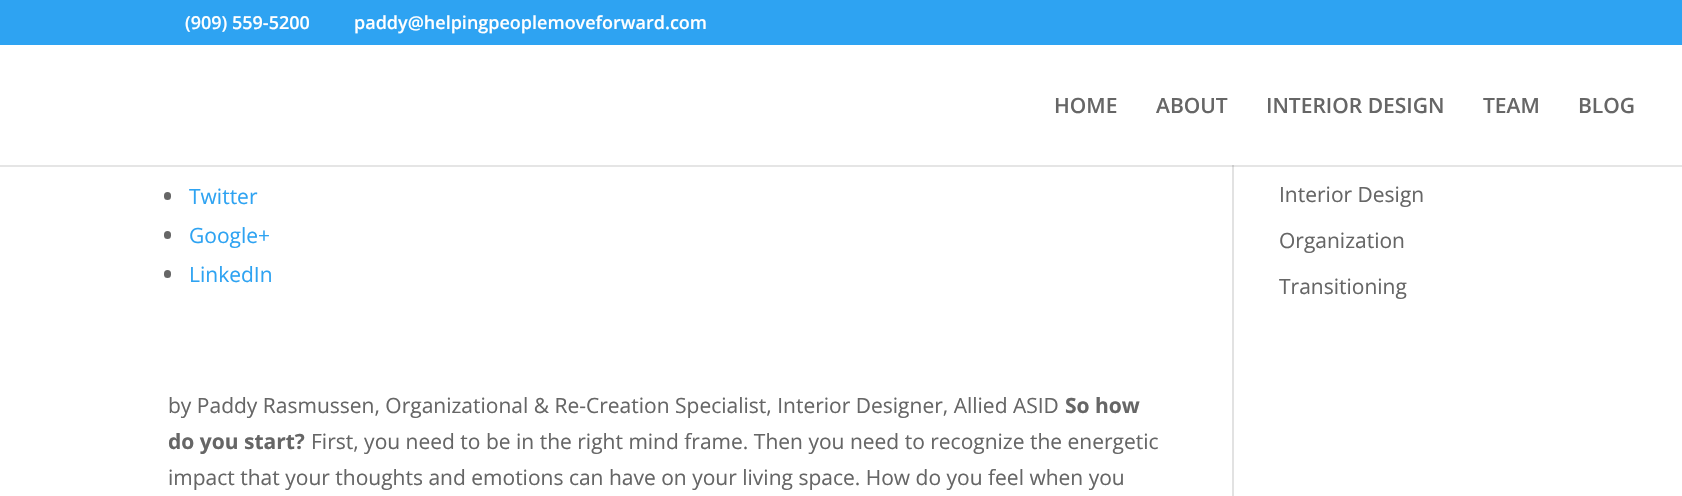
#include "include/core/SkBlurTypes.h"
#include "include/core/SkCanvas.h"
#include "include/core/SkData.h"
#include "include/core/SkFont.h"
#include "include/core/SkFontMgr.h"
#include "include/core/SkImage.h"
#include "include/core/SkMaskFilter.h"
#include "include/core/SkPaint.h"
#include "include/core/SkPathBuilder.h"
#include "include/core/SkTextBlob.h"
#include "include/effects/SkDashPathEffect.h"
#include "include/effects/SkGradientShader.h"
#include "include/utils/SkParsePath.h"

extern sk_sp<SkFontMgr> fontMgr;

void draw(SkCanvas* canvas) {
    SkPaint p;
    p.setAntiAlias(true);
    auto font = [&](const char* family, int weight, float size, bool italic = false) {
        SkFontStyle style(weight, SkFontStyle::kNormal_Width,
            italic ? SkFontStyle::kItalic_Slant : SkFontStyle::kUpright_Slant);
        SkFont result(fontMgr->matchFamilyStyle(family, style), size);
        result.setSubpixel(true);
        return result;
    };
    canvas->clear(0xFFFFFFFF);
    p.setColor(0xFF2EA3F2);
    canvas->drawRect(SkRect::MakeLTRB(0, 0, 1682, 45), p);
    auto font1 = font("Open Sans", 600, 18);
    p.setColor(0xFFFFFFFF);
    canvas->drawString("(909) 559-5200", 185, 29, font1, p);
    canvas->drawString("paddy@helpingpeoplemoveforward.com", 354, 29, font1, p);
    p.setColor(0xFFE2E2E2);
    canvas->drawRect(SkRect::MakeLTRB(1232, 165, 1234, 496), p);
    p.setColor(0x1A000000);
    canvas->drawRect(SkRect::MakeLTRB(0, 165, 1682, 167), p);
    auto font2 = font("Open Sans", 600, 21);
    p.setColor(0xFF666666);
    {
        const struct { const char* s; float x, y; } items[] = {
            {"HOME", 1054, 113},
            {"ABOUT", 1156, 113},
            {"INTERIOR DESIGN", 1266, 113},
            {"TEAM", 1483, 113},
            {"BLOG", 1578, 113},
        };
        for (auto [s, x, y] : items) {
            canvas->drawString(s, x, y, font2, p);
        }
    }
    canvas->drawRoundRect(SkRect::MakeLTRB(164, 192, 171, 200), 3.5f, 3.5f, p);
    auto font3 = font("Open Sans", 400, 21);
    p.setColor(0xFF2EA3F2);
    canvas->drawString("Twitter", 189, 204, font3, p);
    p.setColor(0xFF666666);
    canvas->drawRoundRect(SkRect::MakeLTRB(164, 231, 171, 239), 3.5f, 3.5f, p);
    p.setColor(0xFF2EA3F2);
    canvas->drawString("Google+", 189, 243, font3, p);
    p.setColor(0xFF666666);
    canvas->drawRoundRect(SkRect::MakeLTRB(164, 270, 171, 278), 3.5f, 3.5f, p);
    p.setColor(0xFF2EA3F2);
    canvas->drawString("LinkedIn", 189, 282, font3, p);
    p.setColor(0xFF666666);
    canvas->drawString("by Paddy Rasmussen, Organizational & Re-Creation Specialist, Interior Designer, Allied ASID", 168, 413, font3, p);
    auto font4 = font("Open Sans", 700, 21);
    canvas->drawString("So how", 1065, 413, font4, p);
    canvas->drawString("do you start?", 168, 449, font4, p);
    {
        const struct { const char* s; float x, y; } items[] = {
            {"First, you need to be in the right mind frame. Then you need to recognize the energetic", 311, 449},
            {"impact that your thoughts and emotions can have on your living space. How do you feel when you", 168, 485},
            {"Interior Design", 1279, 202},
            {"Organization", 1279, 248},
            {"Transitioning", 1279, 294},
        };
        for (auto [s, x, y] : items) {
            canvas->drawString(s, x, y, font3, p);
        }
    }
}
